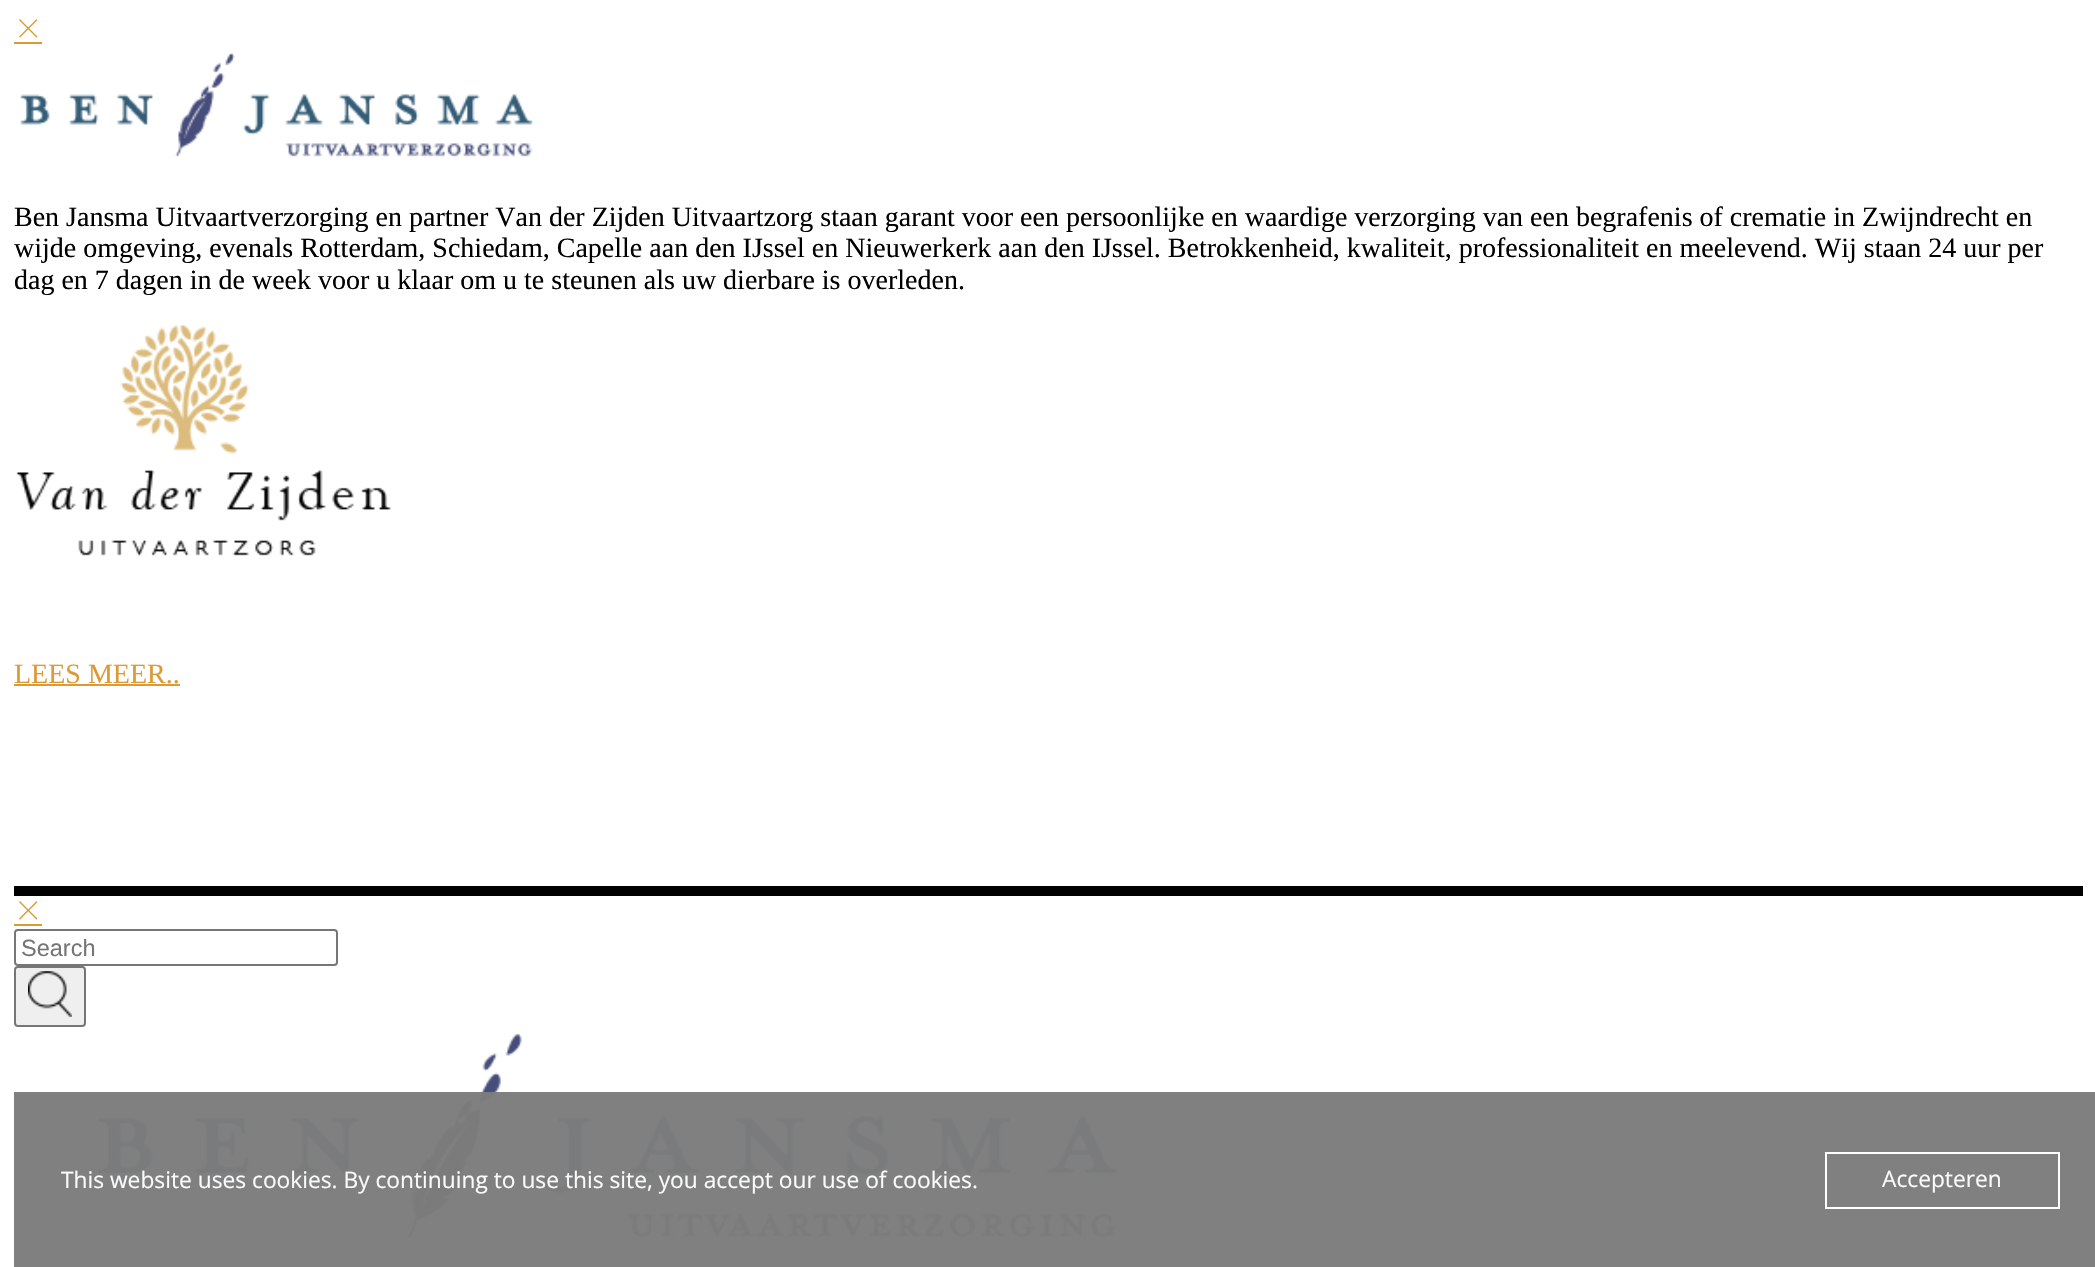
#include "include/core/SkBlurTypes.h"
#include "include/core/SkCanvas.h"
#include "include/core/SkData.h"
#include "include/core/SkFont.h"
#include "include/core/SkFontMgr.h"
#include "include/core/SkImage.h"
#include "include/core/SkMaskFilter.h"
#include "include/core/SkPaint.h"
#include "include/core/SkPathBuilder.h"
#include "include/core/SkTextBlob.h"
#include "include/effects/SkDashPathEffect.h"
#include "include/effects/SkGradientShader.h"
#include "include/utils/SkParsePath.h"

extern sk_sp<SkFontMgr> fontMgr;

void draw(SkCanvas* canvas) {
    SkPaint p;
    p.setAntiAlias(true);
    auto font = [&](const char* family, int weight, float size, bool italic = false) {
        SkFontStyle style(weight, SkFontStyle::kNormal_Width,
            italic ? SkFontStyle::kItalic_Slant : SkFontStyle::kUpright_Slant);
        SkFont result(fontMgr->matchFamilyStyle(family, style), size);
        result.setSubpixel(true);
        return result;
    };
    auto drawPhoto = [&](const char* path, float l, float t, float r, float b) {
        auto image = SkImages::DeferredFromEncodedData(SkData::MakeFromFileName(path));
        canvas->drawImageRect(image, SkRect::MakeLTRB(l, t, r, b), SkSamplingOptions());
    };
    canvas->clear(0xFFFFFFFF);
    drawPhoto("media/1.png", 19, 19, 38, 38);
    p.setColor(0xFFDD9933);
    canvas->drawRect(SkRect::MakeLTRB(14, 42, 42, 44), p);
    drawPhoto("media/2.png", 20, 52, 533, 157);
    auto font1 = font("Liberation Serif", 400, 28);
    p.setColor(0xFF000000);
    {
        const struct { const char* s; float x, y; } items[] = {
            {"Ben Jansma Uitvaartverzorging en partner Van der Zijden Uitvaartzorg staan garant voor een persoonlijke en waardige verzorging van een begrafenis of crematie in Zwijndrecht en", 14, 226},
            {"wijde omgeving, evenals Rotterdam, Schiedam, Capelle aan den IJssel en Nieuwerkerk aan den IJssel. Betrokkenheid, kwaliteit, professionaliteit en meelevend. Wij staan 24 uur per", 14, 257},
            {"dag en 7 dagen in de week voor u klaar om u te steunen als uw dierbare is overleden.", 14, 289},
        };
        for (auto [s, x, y] : items) {
            canvas->drawString(s, x, y, font1, p);
        }
    }
    drawPhoto("media/3.png", 16, 324, 391, 556);
    p.setColor(0xFFDD9933);
    canvas->drawString("LEES MEER..", 14, 683, font1, p);
    canvas->drawRect(SkRect::MakeLTRB(14, 684, 180, 686), p);
    p.setColor(0xFF000000);
    canvas->drawRect(SkRect::MakeLTRB(14, 886, 2083, 896), p);
    drawPhoto("media/1.png", 19, 901, 38, 920);
    p.setColor(0xFFDD9933);
    canvas->drawRect(SkRect::MakeLTRB(14, 924, 42, 926), p);
    p.setStyle(SkPaint::kStroke_Style);
    p.setStrokeWidth(2);
    p.setColor(0xFF767676);
    canvas->drawRoundRect(SkRect::MakeLTRB(15, 930, 337, 965), 3, 3, p);
    auto font2 = font("Liberation Sans", 400, 23.5f);
    p.setStyle(SkPaint::kFill_Style);
    p.setColor(0xFF757575);
    canvas->drawString("Search", 21, 956, font2, p);
    p.setColor(0xFFEFEFEF);
    canvas->drawRoundRect(SkRect::MakeLTRB(15, 967, 85, 1026), 3, 3, p);
    p.setStyle(SkPaint::kStroke_Style);
    p.setColor(0xFF767676);
    canvas->drawRoundRect(SkRect::MakeLTRB(15, 967, 85, 1026), 3, 3, p);
    drawPhoto("media/4.png", 28, 971, 72, 1017);
    drawPhoto("media/5.png", 97, 1033, 1119, 1240);
    p.setStyle(SkPaint::kFill_Style);
    p.setColor(0xF77C7C7C);
    canvas->drawRect(SkRect::MakeLTRB(14, 1092, 2095, 1267), p);
    auto font3 = font("Open Sans", 400, 22.75f);
    p.setColor(0xFFFBFBFB);
    canvas->drawString("This website uses cookies. By continuing to use this site, you accept our use of cookies.", 61, 1188, font3, p);
    p.setStyle(SkPaint::kStroke_Style);
    p.setColor(0xFFFFFFFF);
    canvas->drawRect(SkRect::MakeLTRB(1826, 1153, 2059, 1208), p);
    p.setStyle(SkPaint::kFill_Style);
    p.setColor(0xFFFBFBFB);
    canvas->drawString("Accepteren", 1882, 1187, font3, p);
}
